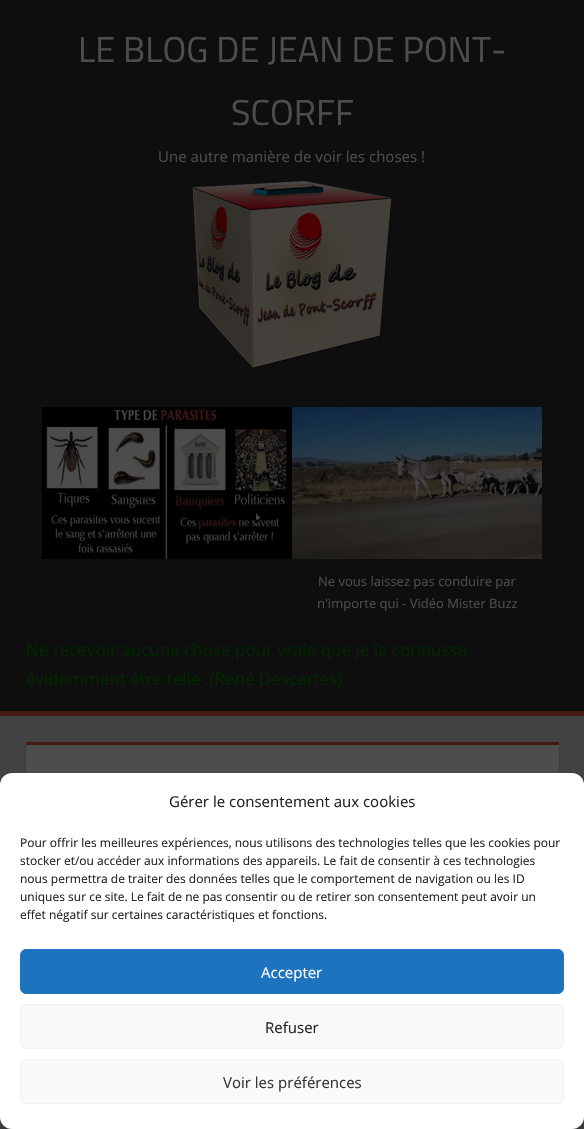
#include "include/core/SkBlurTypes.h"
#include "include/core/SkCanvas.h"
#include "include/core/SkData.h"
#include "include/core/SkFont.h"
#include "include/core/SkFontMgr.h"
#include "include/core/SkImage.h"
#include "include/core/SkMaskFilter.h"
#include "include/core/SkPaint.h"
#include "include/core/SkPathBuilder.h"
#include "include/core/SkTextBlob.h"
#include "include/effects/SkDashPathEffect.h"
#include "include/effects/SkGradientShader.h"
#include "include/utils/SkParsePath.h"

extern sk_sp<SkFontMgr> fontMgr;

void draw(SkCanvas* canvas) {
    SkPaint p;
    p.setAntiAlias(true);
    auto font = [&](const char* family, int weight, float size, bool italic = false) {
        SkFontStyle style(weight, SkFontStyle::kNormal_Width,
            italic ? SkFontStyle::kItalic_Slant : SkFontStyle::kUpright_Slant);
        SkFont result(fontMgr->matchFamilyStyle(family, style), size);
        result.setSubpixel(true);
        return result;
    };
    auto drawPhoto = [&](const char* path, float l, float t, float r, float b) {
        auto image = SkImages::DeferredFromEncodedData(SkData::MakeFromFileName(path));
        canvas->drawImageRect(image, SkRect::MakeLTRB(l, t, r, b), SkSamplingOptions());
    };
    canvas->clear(0xFF424242);
    p.setColor(0xFF0E0E0E);
    canvas->drawRect(SkRect::MakeLTRB(0, 0, 584, 711), p);
    auto font1 = font("Titillium Web", 400, 36);
    p.setColor(0xFF4D4D4D);
    canvas->drawString("LE BLOG DE JEAN DE PONT-", 78, 62, font1, p);
    canvas->drawString("SCORFF", 231, 125, font1, p);
    auto font2 = font("Open Sans", 400, 15);
    canvas->drawString("Une autre manière de voir les choses !", 158, 162, font2, p);
    drawPhoto("media/1.png", 192, 181, 392, 369);
    drawPhoto("media/2.png", 42, 407, 292, 559);
    drawPhoto("media/3.png", 292, 407, 542, 559);
    auto font3 = font("Open Sans", 400, 13);
    canvas->drawString("Ne vous laissez pas conduire par", 318, 586, font3, p);
    canvas->drawString("n'importe qui - Vidéo Mister Buzz", 317, 608, font3, p);
    auto font4 = font("Open Sans", 400, 17);
    p.setColor(0xFF002600);
    canvas->drawString("Ne recevoir aucune chose pour vraie que je la connusse", 26, 656, font4, p);
    canvas->drawString("évidemment être telle .(René Descartes)", 26, 685, font4, p);
    p.setColor(0xFF421A0F);
    canvas->drawRect(SkRect::MakeLTRB(0, 711, 584, 716), p);
    p.setColor(0xFF333333);
    p.setMaskFilter(SkMaskFilter::MakeBlur(kNormal_SkBlurStyle, 1));
    canvas->drawRect(SkRect::MakeLTRB(26, 744, 559, 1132), p);
    p.setMaskFilter(nullptr);
    p.setColor(0xFF4D4D4D);
    canvas->drawRect(SkRect::MakeLTRB(26, 745, 559, 773), p);
    p.setColor(0xFF421A0F);
    canvas->drawRect(SkRect::MakeLTRB(26, 742, 559, 745), p);
    p.setColor(0x3B000000);
    p.setMaskFilter(SkMaskFilter::MakeBlur(kNormal_SkBlurStyle, 3));
    canvas->drawRoundRect(SkRect::MakeLTRB(0, 779, 584, 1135), 12, 12, p);
    p.setMaskFilter(nullptr);
    p.setColor(0xFFFFFFFF);
    canvas->drawRoundRect(SkRect::MakeLTRB(0, 773, 584, 1129), 12, 12, p);
    p.setColor(0xFF222222);
    canvas->drawString("Gérer le consentement aux cookies", 169, 807, font2, p);
    auto font5 = font("Open Sans", 400, 12);
    {
        const struct { const char* s; float x, y; } items[] = {
            {"Pour offrir les meilleures expériences, nous utilisons des technologies telles que les cookies pour", 20, 847},
            {"stocker et/ou accéder aux informations des appareils. Le fait de consentir à ces technologies", 20, 865},
            {"nous permettra de traiter des données telles que le comportement de navigation ou les ID", 20, 883},
            {"uniques sur ce site. Le fait de ne pas consentir ou de retirer son consentement peut avoir un", 20, 901},
            {"effet négatif sur certaines caractéristiques et fonctions.", 20, 919},
        };
        for (auto [s, x, y] : items) {
            canvas->drawString(s, x, y, font5, p);
        }
    }
    p.setColor(0xFF1E73BE);
    canvas->drawRoundRect(SkRect::MakeLTRB(20.5f, 949.5f, 563.5f, 993.5f), 5.5f, 5.5f, p);
    p.setStyle(SkPaint::kStroke_Style);
    p.setStrokeWidth(1);
    canvas->drawRoundRect(SkRect::MakeLTRB(20.5f, 949.5f, 563.5f, 993.5f), 5.5f, 5.5f, p);
    p.setStyle(SkPaint::kFill_Style);
    p.setColor(0xFFFFFFFF);
    canvas->drawString("Accepter", 261, 978, font2, p);
    p.setColor(0xFFF9F9F9);
    canvas->drawRoundRect(SkRect::MakeLTRB(20.5f, 1004.5f, 563.5f, 1048.5f), 5.5f, 5.5f, p);
    p.setStyle(SkPaint::kStroke_Style);
    p.setColor(0xFFF2F2F2);
    canvas->drawRoundRect(SkRect::MakeLTRB(20.5f, 1004.5f, 563.5f, 1048.5f), 5.5f, 5.5f, p);
    p.setStyle(SkPaint::kFill_Style);
    p.setColor(0xFF222222);
    canvas->drawString("Refuser", 265, 1033, font2, p);
    p.setColor(0xFFF9F9F9);
    canvas->drawRoundRect(SkRect::MakeLTRB(20.5f, 1059.5f, 563.5f, 1103.5f), 5.5f, 5.5f, p);
    p.setStyle(SkPaint::kStroke_Style);
    p.setColor(0xFFF2F2F2);
    canvas->drawRoundRect(SkRect::MakeLTRB(20.5f, 1059.5f, 563.5f, 1103.5f), 5.5f, 5.5f, p);
    p.setStyle(SkPaint::kFill_Style);
    p.setColor(0xFF333333);
    canvas->drawString("Voir les préférences", 223, 1088, font2, p);
}
